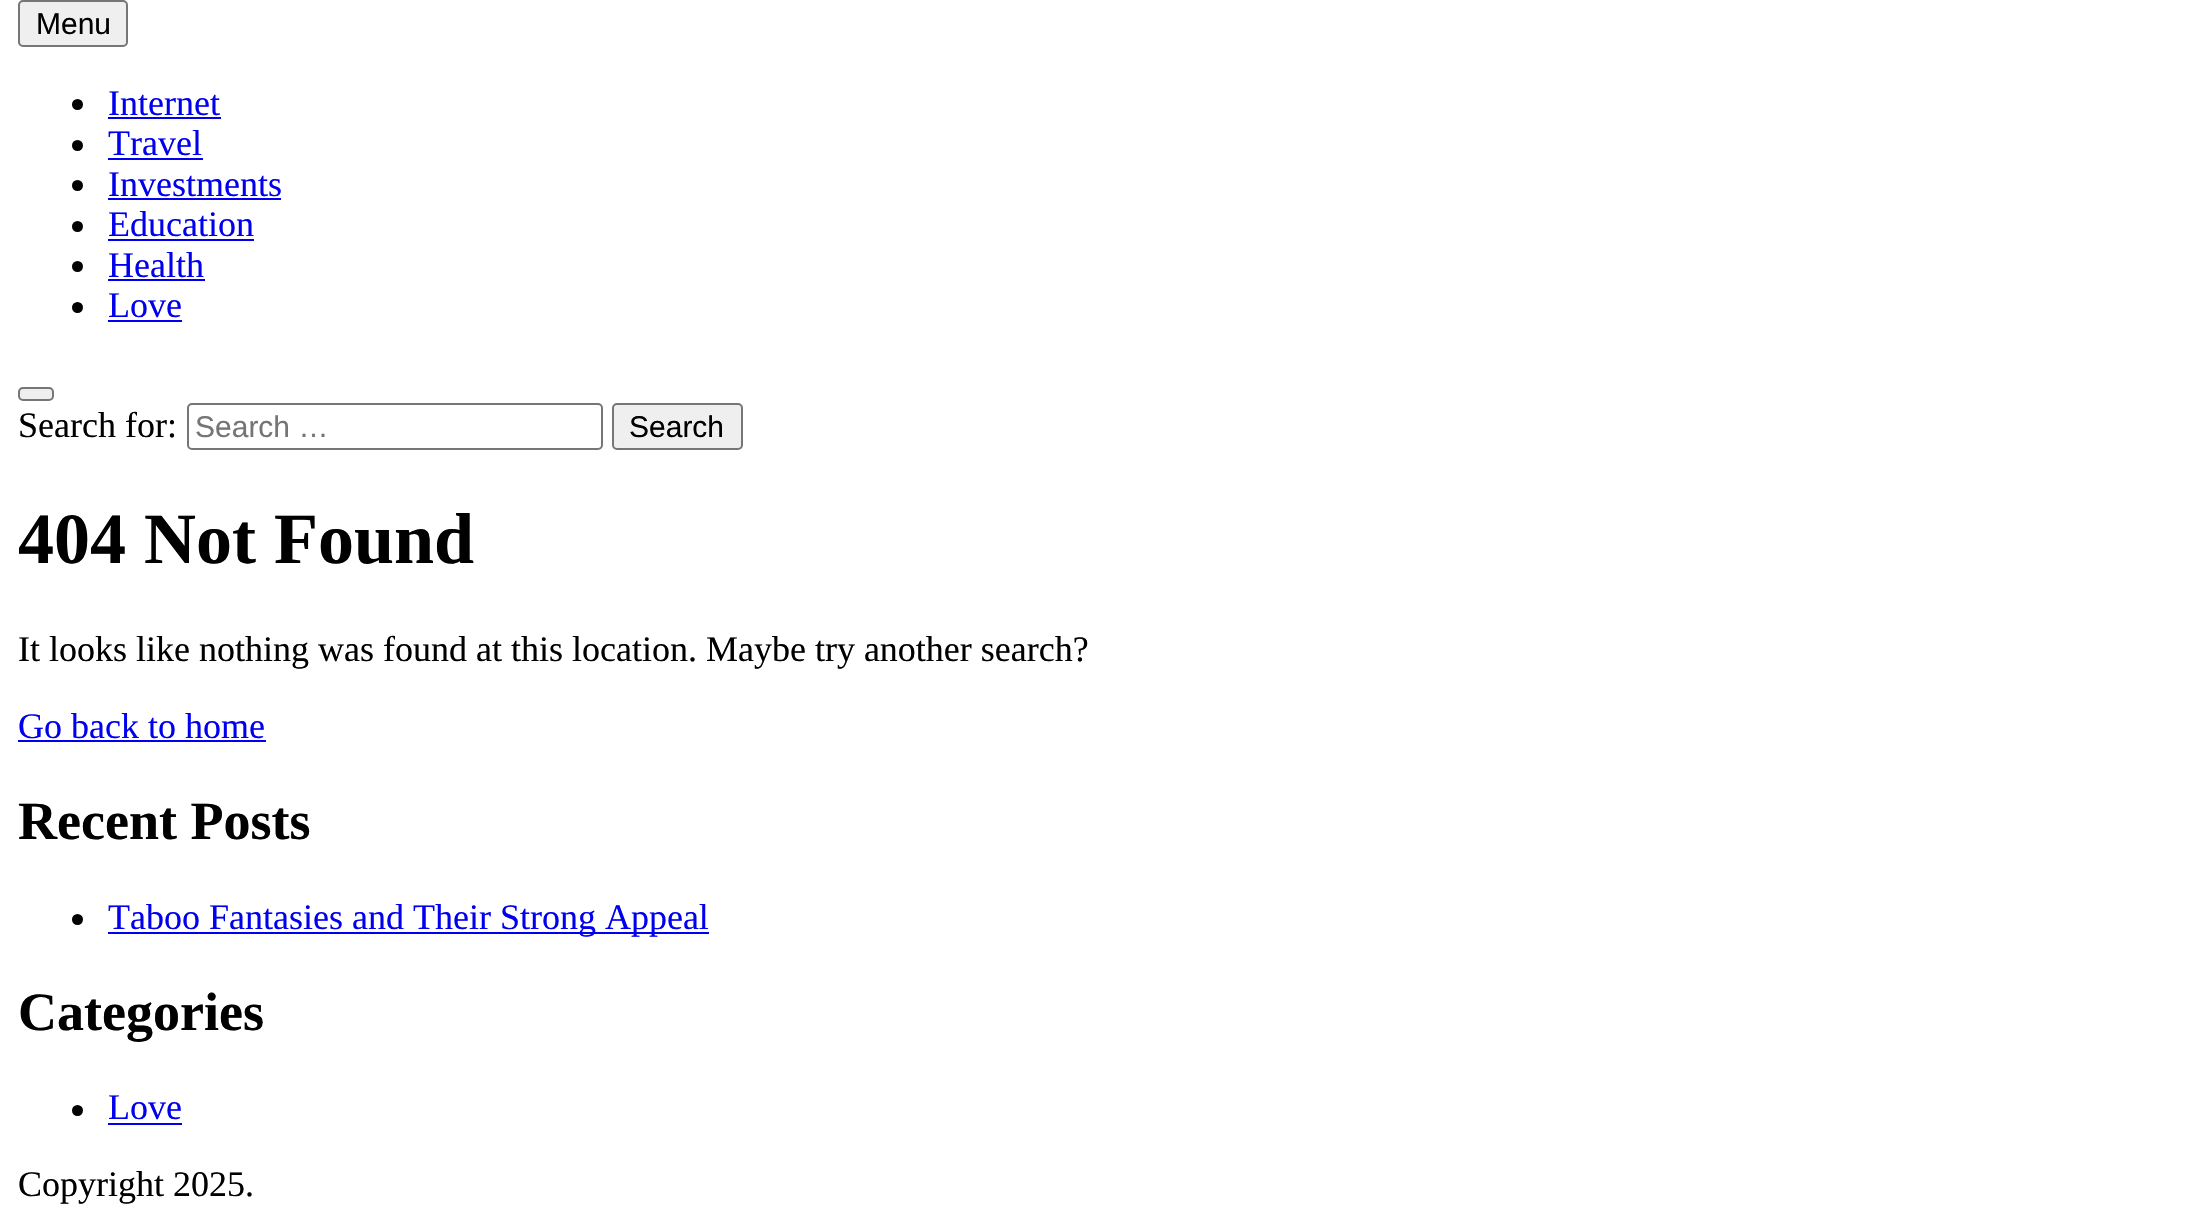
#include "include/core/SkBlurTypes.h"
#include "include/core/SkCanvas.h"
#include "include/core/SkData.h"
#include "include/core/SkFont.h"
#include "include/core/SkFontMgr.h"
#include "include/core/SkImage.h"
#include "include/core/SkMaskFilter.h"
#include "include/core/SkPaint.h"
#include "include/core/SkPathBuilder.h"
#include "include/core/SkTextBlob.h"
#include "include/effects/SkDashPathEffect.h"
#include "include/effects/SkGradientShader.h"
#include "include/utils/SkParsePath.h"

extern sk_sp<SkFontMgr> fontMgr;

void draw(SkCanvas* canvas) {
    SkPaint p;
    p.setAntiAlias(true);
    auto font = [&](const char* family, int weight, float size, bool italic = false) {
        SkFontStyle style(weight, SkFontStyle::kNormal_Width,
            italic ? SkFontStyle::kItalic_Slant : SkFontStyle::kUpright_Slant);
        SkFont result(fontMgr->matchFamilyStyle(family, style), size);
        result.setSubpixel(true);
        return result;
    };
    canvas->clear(0xFFFFFFFF);
    p.setColor(0xFFEFEFEF);
    canvas->drawRoundRect(SkRect::MakeLTRB(19, 1, 127, 46), 4, 4, p);
    p.setStyle(SkPaint::kStroke_Style);
    p.setStrokeWidth(2);
    p.setColor(0xFF767676);
    canvas->drawRoundRect(SkRect::MakeLTRB(19, 1, 127, 46), 4, 4, p);
    auto font1 = font("Liberation Sans", 400, 30);
    p.setStyle(SkPaint::kFill_Style);
    p.setColor(0xFF000000);
    canvas->drawString("Menu", 36, 34, font1, p);
    canvas->drawCircle(77.5f, 104.5f, 5.5f, p);
    auto font2 = font("Liberation Serif", 400, 36);
    p.setColor(0xFF0000EE);
    canvas->drawString("Internet", 108, 115, font2, p);
    canvas->drawRect(SkRect::MakeLTRB(108, 117, 221, 119), p);
    p.setColor(0xFF000000);
    canvas->drawCircle(77.5f, 145.5f, 5.5f, p);
    p.setColor(0xFF0000EE);
    canvas->drawString("Travel", 108, 155, font2, p);
    canvas->drawRect(SkRect::MakeLTRB(108, 158, 203, 160), p);
    p.setColor(0xFF000000);
    canvas->drawCircle(77.5f, 185.5f, 5.5f, p);
    p.setColor(0xFF0000EE);
    canvas->drawString("Investments", 108, 196, font2, p);
    canvas->drawRect(SkRect::MakeLTRB(108, 198, 281, 200), p);
    p.setColor(0xFF000000);
    canvas->drawCircle(77.5f, 226.5f, 5.5f, p);
    p.setColor(0xFF0000EE);
    canvas->drawString("Education", 108, 236, font2, p);
    canvas->drawRect(SkRect::MakeLTRB(108, 239, 254, 241), p);
    p.setColor(0xFF000000);
    canvas->drawCircle(77.5f, 266.5f, 5.5f, p);
    p.setColor(0xFF0000EE);
    canvas->drawString("Health", 108, 277, font2, p);
    canvas->drawRect(SkRect::MakeLTRB(108, 279, 205, 281), p);
    p.setColor(0xFF000000);
    canvas->drawCircle(77.5f, 307.5f, 5.5f, p);
    p.setColor(0xFF0000EE);
    canvas->drawString("Love", 108, 317, font2, p);
    canvas->drawRect(SkRect::MakeLTRB(108, 320, 182, 322), p);
    p.setColor(0xFFEFEFEF);
    canvas->drawRoundRect(SkRect::MakeLTRB(19, 388, 53, 400), 4, 4, p);
    p.setStyle(SkPaint::kStroke_Style);
    p.setColor(0xFF767676);
    canvas->drawRoundRect(SkRect::MakeLTRB(19, 388, 53, 400), 4, 4, p);
    p.setStyle(SkPaint::kFill_Style);
    p.setColor(0xFF000000);
    canvas->drawString("Search for:", 18, 437, font2, p);
    p.setStyle(SkPaint::kStroke_Style);
    p.setColor(0xFF767676);
    canvas->drawRoundRect(SkRect::MakeLTRB(188, 404, 602, 449), 4, 4, p);
    p.setStyle(SkPaint::kFill_Style);
    p.setColor(0xFF757575);
    canvas->drawString("Search …", 195, 437, font1, p);
    p.setColor(0xFFEFEFEF);
    canvas->drawRoundRect(SkRect::MakeLTRB(613, 404, 742, 449), 4, 4, p);
    p.setStyle(SkPaint::kStroke_Style);
    p.setColor(0xFF767676);
    canvas->drawRoundRect(SkRect::MakeLTRB(613, 404, 742, 449), 4, 4, p);
    p.setStyle(SkPaint::kFill_Style);
    p.setColor(0xFF000000);
    canvas->drawString("Search", 629, 437, font1, p);
    auto font3 = font("Liberation Serif", 700, 72);
    canvas->drawString("404 Not Found", 18, 563, font3, p);
    canvas->drawString("It looks like nothing was found at this location. Maybe try another search?", 18, 661, font2, p);
    p.setColor(0xFF0000EE);
    canvas->drawString("Go back to home", 18, 738, font2, p);
    canvas->drawRect(SkRect::MakeLTRB(18, 740, 266, 742), p);
    auto font4 = font("Liberation Serif", 700, 54);
    p.setColor(0xFF000000);
    canvas->drawString("Recent Posts", 18, 839, font4, p);
    canvas->drawCircle(77.5f, 919.5f, 5.5f, p);
    p.setColor(0xFF0000EE);
    canvas->drawRect(SkRect::MakeLTRB(108, 932, 709, 934), p);
    canvas->drawString("Taboo Fantasies and Their Strong Appeal", 108, 929, font2, p);
    p.setColor(0xFF000000);
    canvas->drawString("Categories", 18, 1030, font4, p);
    canvas->drawCircle(77.5f, 1110.5f, 5.5f, p);
    p.setColor(0xFF0000EE);
    canvas->drawString("Love", 108, 1119, font2, p);
    canvas->drawRect(SkRect::MakeLTRB(108, 1123, 182, 1125), p);
    p.setColor(0xFF000000);
    canvas->drawString("Copyright 2025.", 18, 1196, font2, p);
}
